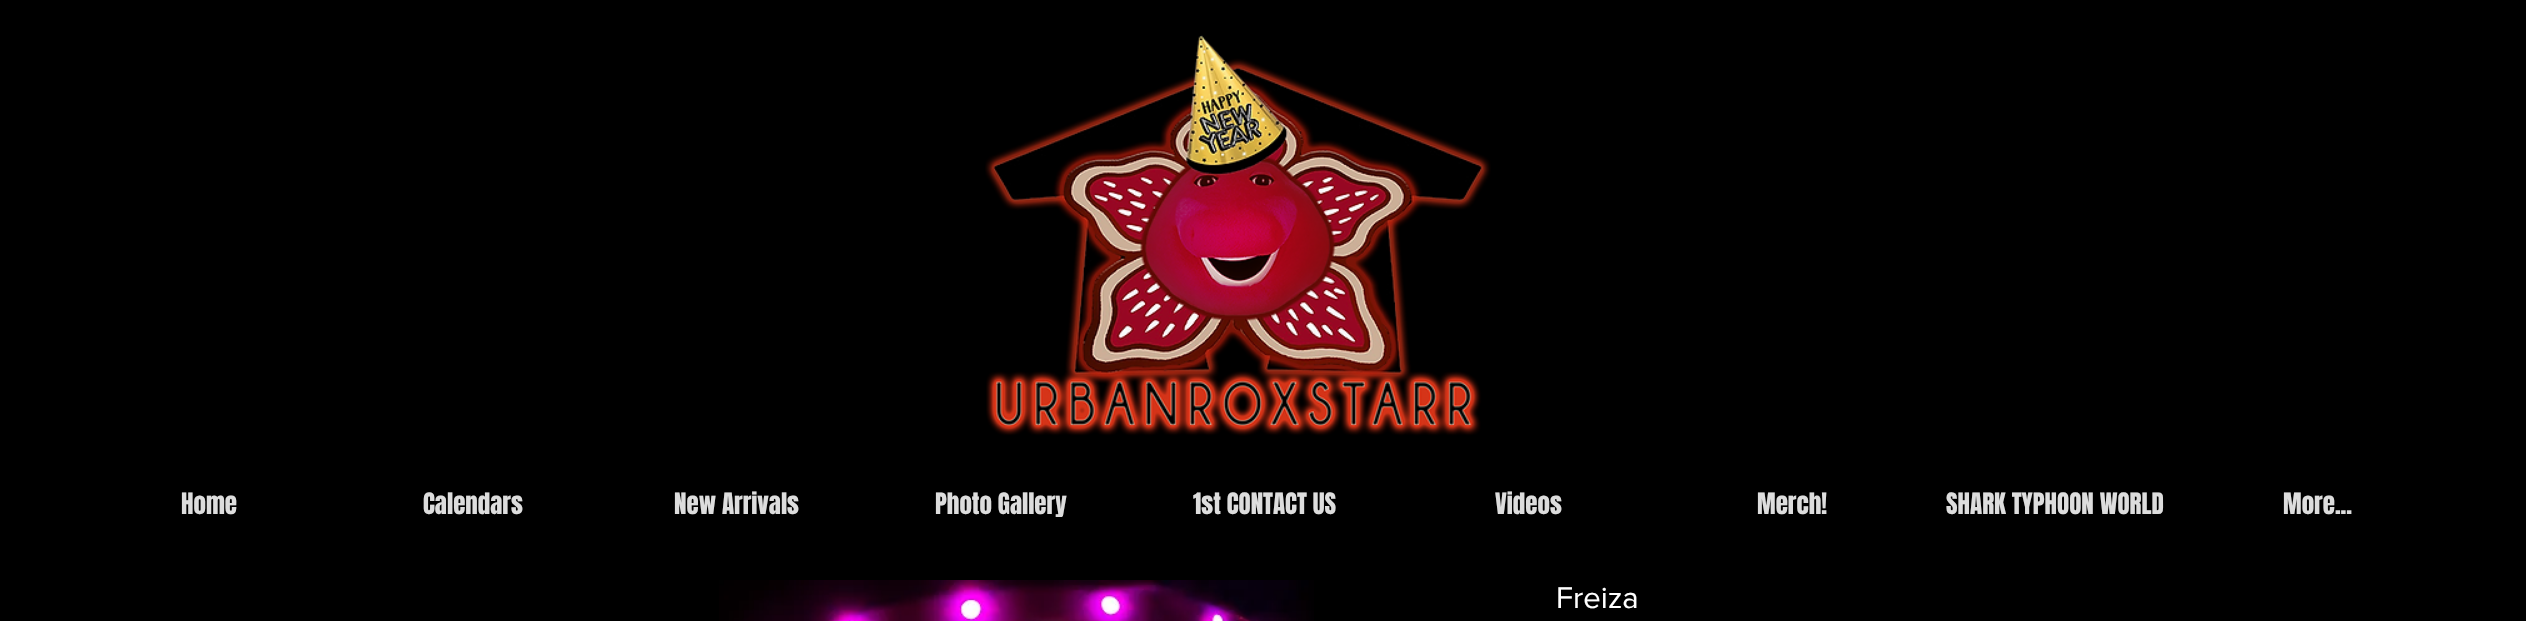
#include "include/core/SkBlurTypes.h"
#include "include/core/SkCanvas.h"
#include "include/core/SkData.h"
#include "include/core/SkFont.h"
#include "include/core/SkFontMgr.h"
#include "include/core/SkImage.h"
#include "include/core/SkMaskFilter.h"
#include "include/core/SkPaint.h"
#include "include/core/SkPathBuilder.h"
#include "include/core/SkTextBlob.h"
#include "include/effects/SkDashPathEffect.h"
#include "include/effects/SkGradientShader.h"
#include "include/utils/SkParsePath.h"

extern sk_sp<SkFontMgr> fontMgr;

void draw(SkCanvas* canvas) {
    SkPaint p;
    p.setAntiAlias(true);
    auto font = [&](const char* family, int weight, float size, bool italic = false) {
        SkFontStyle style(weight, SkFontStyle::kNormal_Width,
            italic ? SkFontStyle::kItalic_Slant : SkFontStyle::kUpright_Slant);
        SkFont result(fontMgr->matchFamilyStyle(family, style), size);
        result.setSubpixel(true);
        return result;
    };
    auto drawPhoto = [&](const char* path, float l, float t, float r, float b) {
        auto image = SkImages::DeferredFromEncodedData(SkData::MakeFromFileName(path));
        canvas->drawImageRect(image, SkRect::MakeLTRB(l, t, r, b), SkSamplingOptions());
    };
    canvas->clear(0xFF000000);
    drawPhoto("media/1.png", 985, 35, 1491, 436);
    auto font1 = font("Anton", 400, 25);
    p.setColor(0xFFDDDDDD);
    {
        const struct { const char* s; float x, y; } items[] = {
            {"Home", 181, 514},
            {"Calendars", 423, 514},
            {"New Arrivals", 674, 514},
            {"Photo Gallery", 935, 514},
            {"1st CONTACT US", 1193, 514},
            {"Videos", 1495, 514},
            {"Merch!", 1757, 514},
            {"SHARK TYPHOON WORLD", 1946, 514},
            {"More...", 2283, 514},
        };
        for (auto [s, x, y] : items) {
            canvas->drawString(s, x, y, font1, p);
        }
    }
    drawPhoto("media/2.png", 719, 580, 1314, 621);
    auto font2 = font("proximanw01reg", 400, 31);
    p.setColor(0xFFFFFFFF);
    canvas->drawString("Freiza", 1556, 608, font2, p);
}
